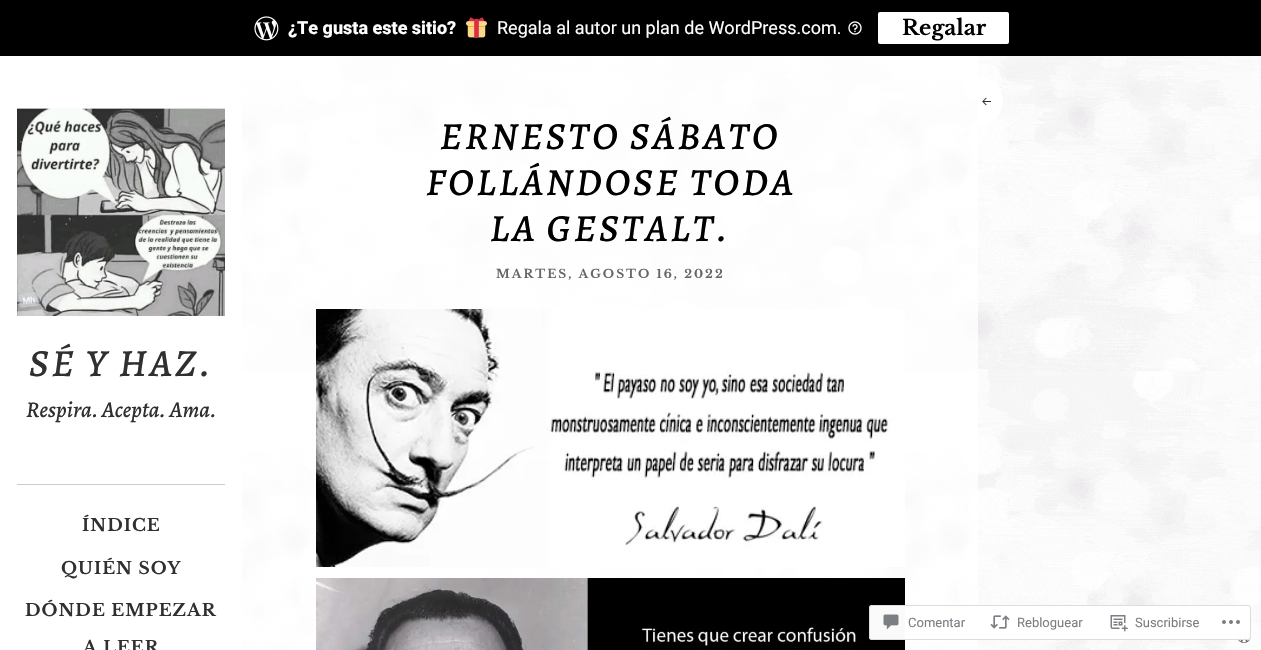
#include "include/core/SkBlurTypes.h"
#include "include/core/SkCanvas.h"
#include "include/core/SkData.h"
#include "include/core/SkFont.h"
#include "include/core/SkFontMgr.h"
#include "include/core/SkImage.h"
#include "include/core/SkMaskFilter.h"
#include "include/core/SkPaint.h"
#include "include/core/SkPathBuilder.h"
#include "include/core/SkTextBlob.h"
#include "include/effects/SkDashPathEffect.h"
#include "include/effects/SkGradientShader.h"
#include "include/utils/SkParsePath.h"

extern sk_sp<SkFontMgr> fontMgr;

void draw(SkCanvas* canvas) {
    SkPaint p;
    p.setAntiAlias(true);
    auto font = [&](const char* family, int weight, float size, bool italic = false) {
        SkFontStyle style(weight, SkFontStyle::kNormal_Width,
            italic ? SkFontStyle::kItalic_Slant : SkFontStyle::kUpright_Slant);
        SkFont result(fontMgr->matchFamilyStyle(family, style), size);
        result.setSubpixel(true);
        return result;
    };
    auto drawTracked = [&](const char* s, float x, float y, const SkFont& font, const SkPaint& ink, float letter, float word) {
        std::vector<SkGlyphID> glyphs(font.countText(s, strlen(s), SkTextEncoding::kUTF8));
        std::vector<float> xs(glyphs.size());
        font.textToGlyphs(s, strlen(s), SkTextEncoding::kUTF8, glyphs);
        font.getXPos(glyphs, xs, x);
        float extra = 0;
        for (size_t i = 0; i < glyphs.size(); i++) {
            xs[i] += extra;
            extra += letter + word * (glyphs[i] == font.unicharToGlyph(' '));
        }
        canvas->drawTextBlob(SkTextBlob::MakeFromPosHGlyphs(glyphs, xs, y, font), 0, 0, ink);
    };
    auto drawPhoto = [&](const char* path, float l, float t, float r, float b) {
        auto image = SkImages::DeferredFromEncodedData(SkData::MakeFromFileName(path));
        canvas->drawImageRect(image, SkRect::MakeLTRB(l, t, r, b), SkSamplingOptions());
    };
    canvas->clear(0xFFFFFFFF);
    drawPhoto("media/1.png", 242, 56, 1261, 650);
    p.setColor(0xFF000000);
    canvas->drawRect(SkRect::MakeLTRB(0, 0, 1261, 56), p);
    drawPhoto("media/2.png", 254, 16, 279, 41);
    auto font1 = font("Roboto", 800, 18);
    p.setColor(0xFFFFFFFF);
    canvas->drawString("¿Te gusta este sitio?", 288, 34, font1, p);
    drawPhoto("media/3.png", 466, 17, 487, 38);
    auto font2 = font("Roboto", 400, 18);
    canvas->drawString("Regala al autor un plan de WordPress.com.", 497, 34, font2, p);
    drawPhoto("media/4.png", 848, 21, 862, 35);
    canvas->drawRoundRect(SkRect::MakeLTRB(878, 12, 1009, 44), 2, 2, p);
    auto font3 = font("Libre Baskerville", 700, 21);
    p.setColor(0xFF000000);
    canvas->drawString("Regalar", 902, 35, font3, p);
    p.setColor(0xFFFFFFFF);
    canvas->drawPath(SkPathBuilder().moveTo(978, 76).cubicTo(992, 76, 1003, 87, 1003, 101).cubicTo(1003, 115, 992, 126, 978, 126).close().detach(), p);
    drawPhoto("media/5.png", 982, 97, 991, 106);
    p.setColor(0xCCFFFFFF);
    canvas->drawRect(SkRect::MakeLTRB(242, 56, 978, 650), p);
    auto font4 = font("Alegreya", 500, 38.5f, true);
    p.setColor(0xFF000000);
    {
        const struct { const char* s; float x, y; } items[] = {
            {"ERNESTO SÁBATO", 440, 149},
            {"FOLLÁNDOSE TODA", 426, 195},
            {"LA GESTALT.", 490, 241},
        };
        for (auto [s, x, y] : items) {
            drawTracked(s, x, y, font4, p, 3, 0);
        }
    }
    auto font5 = font("Libre Baskerville", 700, 12);
    p.setColor(0xFF666666);
    drawTracked("MARTES, AGOSTO 16, 2022", 496, 278, font5, p, 2, 0);
    drawPhoto("media/6.png", 316, 309, 905, 567);
    drawPhoto("media/7.png", 316, 578, 905, 650);
    drawPhoto("media/8.png", 17, 108, 225, 316);
    p.setColor(0xFF303030);
    drawTracked("SÉ Y HAZ.", 29, 376, font4, p, 3, 0);
    auto font6 = font("Alegreya", 500, 22.5f, true);
    canvas->drawString("Respira. Acepta. Ama.", 26, 417, font6, p);
    p.setColor(0xFFCCCCCC);
    canvas->drawRect(SkRect::MakeLTRB(17, 484, 225, 485), p);
    auto font7 = font("Libre Baskerville", 700, 16.9f);
    p.setColor(0xFF303030);
    {
        const struct { const char* s; float x, y; } items[] = {
            {"ÍNDICE", 82, 531},
            {"QUIÉN SOY", 61, 574},
            {"DÓNDE EMPEZAR", 25, 616},
            {"A LEER", 83, 653},
        };
        for (auto [s, x, y] : items) {
            drawTracked(s, x, y, font7, p, 1, 0);
        }
    }
    p.setColor(0x80FFFFFF);
    canvas->drawRect(SkRect::MakeLTRB(1227, 622, 1261, 650), p);
    drawPhoto("media/13.png", 1237, 629, 1251, 643);
    p.setColor(0xFAFFFFFF);
    canvas->drawRoundRect(SkRect::MakeLTRB(869, 605, 1251, 640), 3, 3, p);
    p.setStyle(SkPaint::kStroke_Style);
    p.setStrokeWidth(1);
    p.setColor(0xFADCDCDE);
    canvas->drawRoundRect(SkRect::MakeLTRB(869.5f, 605.5f, 1250.5f, 639.5f), 2.5f, 2.5f, p);
    drawPhoto("media/9.png", 883, 614, 899, 630);
    auto font8 = font("Roboto", 400, 13);
    p.setStyle(SkPaint::kFill_Style);
    p.setColor(0xFF7B7F84);
    canvas->drawString("Comentar", 908, 627, font8, p);
    drawPhoto("media/10.png", 990, 615, 1010, 629);
    canvas->drawString("Rebloguear", 1017, 627, font8, p);
    drawPhoto("media/11.png", 1110, 615, 1128, 632);
    canvas->drawString("Suscribirse", 1135, 627, font8, p);
    drawPhoto("media/12.png", 1222, 620, 1240, 624);
}
